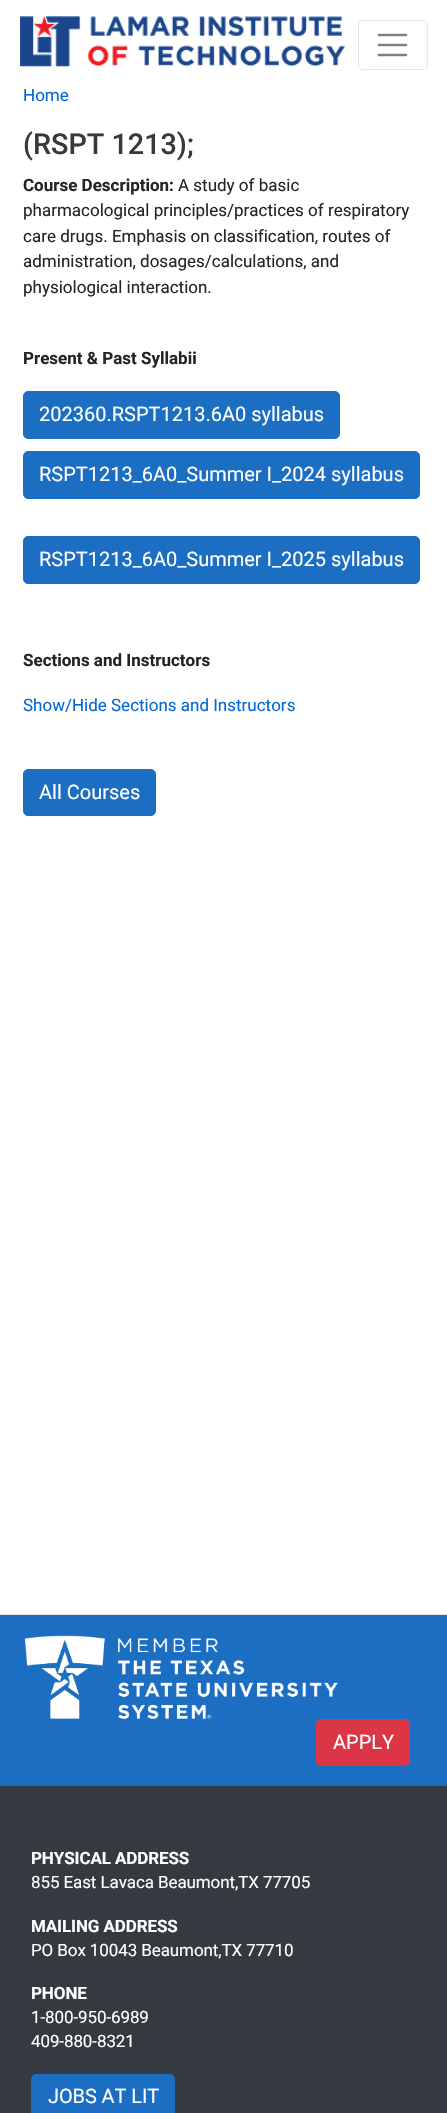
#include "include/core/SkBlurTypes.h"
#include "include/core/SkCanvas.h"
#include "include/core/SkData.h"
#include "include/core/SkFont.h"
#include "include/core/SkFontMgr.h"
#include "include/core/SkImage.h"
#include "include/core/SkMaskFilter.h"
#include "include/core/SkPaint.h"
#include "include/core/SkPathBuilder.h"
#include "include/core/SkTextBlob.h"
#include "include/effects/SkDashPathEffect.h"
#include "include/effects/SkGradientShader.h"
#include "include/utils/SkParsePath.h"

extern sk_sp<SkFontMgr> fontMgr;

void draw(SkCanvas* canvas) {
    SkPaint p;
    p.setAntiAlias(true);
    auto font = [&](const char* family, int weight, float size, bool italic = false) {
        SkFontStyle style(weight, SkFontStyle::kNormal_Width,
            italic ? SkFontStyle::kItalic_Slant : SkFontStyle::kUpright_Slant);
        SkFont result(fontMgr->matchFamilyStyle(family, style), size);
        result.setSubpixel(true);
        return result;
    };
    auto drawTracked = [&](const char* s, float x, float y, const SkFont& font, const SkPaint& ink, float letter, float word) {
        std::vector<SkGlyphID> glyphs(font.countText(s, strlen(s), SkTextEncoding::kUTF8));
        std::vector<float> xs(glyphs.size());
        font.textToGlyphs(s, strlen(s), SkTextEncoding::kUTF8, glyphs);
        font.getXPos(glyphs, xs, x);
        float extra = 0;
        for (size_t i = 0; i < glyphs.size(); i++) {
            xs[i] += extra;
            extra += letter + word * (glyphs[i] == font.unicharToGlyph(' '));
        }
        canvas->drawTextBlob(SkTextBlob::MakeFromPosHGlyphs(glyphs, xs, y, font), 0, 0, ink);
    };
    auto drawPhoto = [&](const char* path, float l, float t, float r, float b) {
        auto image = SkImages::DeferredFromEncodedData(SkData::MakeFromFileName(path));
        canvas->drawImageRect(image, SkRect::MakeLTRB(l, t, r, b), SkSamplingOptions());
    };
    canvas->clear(0xFFFFFFFF);
    drawPhoto("media/1.png", 20, 16, 345, 67);
    p.setStyle(SkPaint::kStroke_Style);
    p.setStrokeWidth(1);
    p.setColor(0xFFE6E6E6);
    canvas->drawRoundRect(SkRect::MakeLTRB(358.5f, 20.5f, 427.5f, 69.5f), 4.5f, 4.5f, p);
    p.setStrokeWidth(2.5f);
    p.setStrokeCap(SkPaint::kRound_Cap);
    p.setColor(0xFF808080);
    canvas->drawPath(SkPathBuilder().moveTo(379, 35).lineTo(406, 35).moveTo(379, 45).lineTo(406, 45).moveTo(379, 55).lineTo(406, 55).detach(), p);
    auto font1 = font("Roboto", 400, 17);
    p.setStyle(SkPaint::kFill_Style);
    p.setColor(0xFF0366D6);
    canvas->drawString("Home", 23, 101, font1, p);
    auto font2 = font("Roboto", 500, 28.75f);
    p.setColor(0xFF343A40);
    canvas->drawString("(RSPT 1213);", 23, 154, font2, p);
    auto font3 = font("Roboto", 700, 17);
    p.setColor(0xFF212529);
    canvas->drawString("Course Description:", 23, 191, font3, p);
    {
        const struct { const char* s; float x, y; } items[] = {
            {"A study of basic", 178, 191},
            {"pharmacological principles/practices of respiratory", 23, 216},
            {"care drugs. Emphasis on classification, routes of", 23, 242},
            {"administration, dosages/calculations, and", 23, 267},
            {"physiological interaction.", 23, 293},
        };
        for (auto [s, x, y] : items) {
            canvas->drawString(s, x, y, font1, p);
        }
    }
    canvas->drawString("Present & Past Syllabii", 23, 364, font3, p);
    p.setColor(0xFF1B6EC2);
    canvas->drawRoundRect(SkRect::MakeLTRB(23.5f, 391.5f, 339.5f, 438.5f), 4.5f, 4.5f, p);
    p.setStyle(SkPaint::kStroke_Style);
    p.setStrokeWidth(1);
    p.setStrokeCap(SkPaint::kButt_Cap);
    canvas->drawRoundRect(SkRect::MakeLTRB(23.5f, 391.5f, 339.5f, 438.5f), 4.5f, 4.5f, p);
    auto font4 = font("Roboto", 400, 20);
    p.setStyle(SkPaint::kFill_Style);
    p.setColor(0xFFFFFFFF);
    canvas->drawString("202360.RSPT1213.6A0 syllabus", 39, 421, font4, p);
    p.setColor(0xFF1B6EC2);
    canvas->drawRoundRect(SkRect::MakeLTRB(23.5f, 451.5f, 419.5f, 498.5f), 4.5f, 4.5f, p);
    p.setStyle(SkPaint::kStroke_Style);
    canvas->drawRoundRect(SkRect::MakeLTRB(23.5f, 451.5f, 419.5f, 498.5f), 4.5f, 4.5f, p);
    p.setStyle(SkPaint::kFill_Style);
    p.setColor(0xFFFFFFFF);
    canvas->drawString("RSPT1213_6A0_Summer I_2024 syllabus", 39, 481, font4, p);
    p.setColor(0xFF1B6EC2);
    canvas->drawRoundRect(SkRect::MakeLTRB(23.5f, 536.5f, 419.5f, 583.5f), 4.5f, 4.5f, p);
    p.setStyle(SkPaint::kStroke_Style);
    canvas->drawRoundRect(SkRect::MakeLTRB(23.5f, 536.5f, 419.5f, 583.5f), 4.5f, 4.5f, p);
    p.setStyle(SkPaint::kFill_Style);
    p.setColor(0xFFFFFFFF);
    canvas->drawString("RSPT1213_6A0_Summer I_2025 syllabus", 39, 566, font4, p);
    p.setColor(0xFF212529);
    canvas->drawString("Sections and Instructors", 23, 666, font3, p);
    p.setColor(0xFF0366D6);
    canvas->drawString("Show/Hide Sections and Instructors", 23, 711, font1, p);
    p.setColor(0xFF1B6EC2);
    canvas->drawRoundRect(SkRect::MakeLTRB(23.5f, 769.5f, 155.5f, 815.5f), 4.5f, 4.5f, p);
    p.setStyle(SkPaint::kStroke_Style);
    canvas->drawRoundRect(SkRect::MakeLTRB(23.5f, 769.5f, 155.5f, 815.5f), 4.5f, 4.5f, p);
    p.setStyle(SkPaint::kFill_Style);
    p.setColor(0xFFFFFFFF);
    canvas->drawString("All Courses", 39, 799, font4, p);
    p.setColor(0xFFDEE2E6);
    canvas->drawRect(SkRect::MakeLTRB(0, 1614, 447, 1615), p);
    p.setColor(0xFF1B6EC2);
    canvas->drawRect(SkRect::MakeLTRB(0, 1615, 447, 1786), p);
    drawPhoto("media/2.png", 25, 1635, 338, 1719);
    p.setColor(0xFFDC3545);
    canvas->drawRoundRect(SkRect::MakeLTRB(316.5f, 1719.5f, 409.5f, 1765.5f), 4.5f, 4.5f, p);
    p.setStyle(SkPaint::kStroke_Style);
    canvas->drawRoundRect(SkRect::MakeLTRB(316.5f, 1719.5f, 409.5f, 1765.5f), 4.5f, 4.5f, p);
    p.setStyle(SkPaint::kFill_Style);
    p.setColor(0xFFFFFFFF);
    canvas->drawString("APPLY", 333, 1749, font4, p);
    p.setColor(0xFF343A40);
    canvas->drawRect(SkRect::MakeLTRB(0, 1786, 447, 2113), p);
    p.setColor(0xFFFFFFFF);
    drawTracked("PHYSICAL ADDRESS", 31, 1864, font3, p, -0.1f, 0);
    drawTracked("855 East Lavaca Beaumont,TX 77705", 31, 1888, font1, p, -0.1f, 0);
    drawTracked("MAILING ADDRESS", 31, 1932, font3, p, -0.1f, 0);
    drawTracked("PO Box 10043 Beaumont,TX 77710", 31, 1956, font1, p, -0.1f, 0);
    drawTracked("PHONE", 31, 1999, font3, p, -0.1f, 0);
    drawTracked("1-800-950-6989", 31, 2023, font1, p, -0.1f, 0);
    drawTracked("409-880-8321", 31, 2047, font1, p, -0.1f, 0);
    p.setColor(0xFF1B6EC2);
    canvas->drawRoundRect(SkRect::MakeLTRB(31.5f, 2074.5f, 174.5f, 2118.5f), 4.5f, 4.5f, p);
    p.setStyle(SkPaint::kStroke_Style);
    canvas->drawRoundRect(SkRect::MakeLTRB(31.5f, 2074.5f, 174.5f, 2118.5f), 4.5f, 4.5f, p);
    p.setStyle(SkPaint::kFill_Style);
    p.setColor(0xFFFFFFFF);
    drawTracked("JOBS AT LIT", 48, 2103, font4, p, -0.1f, 0);
}
